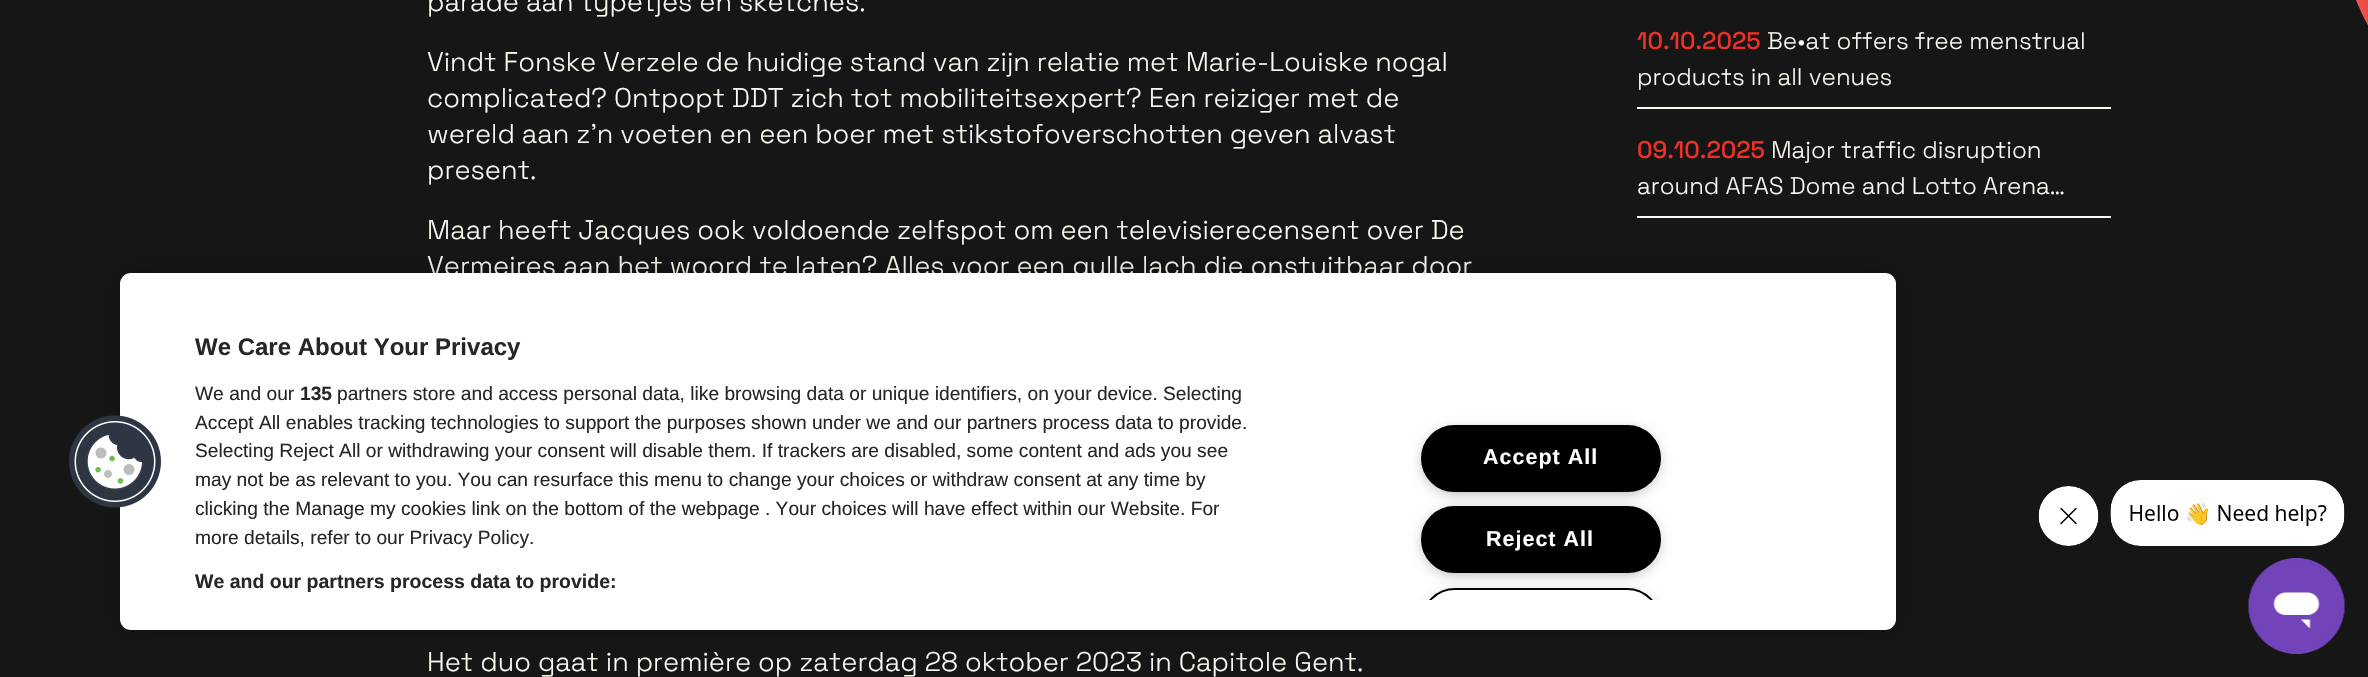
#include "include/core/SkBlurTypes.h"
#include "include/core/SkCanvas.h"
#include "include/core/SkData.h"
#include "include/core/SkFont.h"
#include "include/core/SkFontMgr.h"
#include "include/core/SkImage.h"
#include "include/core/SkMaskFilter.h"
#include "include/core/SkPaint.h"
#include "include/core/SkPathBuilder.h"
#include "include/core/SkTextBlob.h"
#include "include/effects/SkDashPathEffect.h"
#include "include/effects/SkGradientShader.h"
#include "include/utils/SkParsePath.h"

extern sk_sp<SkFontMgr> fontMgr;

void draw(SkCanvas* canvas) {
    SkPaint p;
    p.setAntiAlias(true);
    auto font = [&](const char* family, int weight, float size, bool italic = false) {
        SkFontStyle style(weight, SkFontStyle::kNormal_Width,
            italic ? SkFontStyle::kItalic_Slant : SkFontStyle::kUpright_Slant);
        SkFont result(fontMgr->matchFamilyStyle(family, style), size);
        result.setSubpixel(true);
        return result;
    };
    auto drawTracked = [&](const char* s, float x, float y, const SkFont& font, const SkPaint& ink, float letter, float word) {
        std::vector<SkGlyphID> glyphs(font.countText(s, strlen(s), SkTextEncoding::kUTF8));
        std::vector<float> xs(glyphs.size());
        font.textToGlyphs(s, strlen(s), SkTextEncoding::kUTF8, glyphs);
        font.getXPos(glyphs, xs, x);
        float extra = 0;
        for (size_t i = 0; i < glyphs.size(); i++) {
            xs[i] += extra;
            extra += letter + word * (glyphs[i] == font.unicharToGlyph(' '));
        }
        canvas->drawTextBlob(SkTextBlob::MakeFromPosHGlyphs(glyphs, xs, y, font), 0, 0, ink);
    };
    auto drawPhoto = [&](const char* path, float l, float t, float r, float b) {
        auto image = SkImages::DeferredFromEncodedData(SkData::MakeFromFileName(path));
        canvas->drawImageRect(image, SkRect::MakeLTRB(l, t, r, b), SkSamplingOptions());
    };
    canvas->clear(0xFF161616);
    auto font1 = font("Space Grotesk", 300, 27);
    p.setColor(0xFFFDFAF2);
    {
        const struct { const char* s; float x, y; } items[] = {
            {"parade aan typetjes en sketches.", 427, 11},
            {"Vindt Fonske Verzele de huidige stand van zijn relatie met Marie-Louiske nogal", 427, 71},
            {"complicated? Ontpopt DDT zich tot mobiliteitsexpert? Een reiziger met de", 427, 107},
            {"wereld aan z'n voeten en een boer met stikstofoverschotten geven alvast", 427, 143},
            {"present.", 427, 179},
            {"Maar heeft Jacques ook voldoende zelfspot om een televisierecensent over De", 427, 239},
            {"Vermeires aan het woord te laten? Alles voor een gulle lach die onstuitbaar door", 427, 275},
            {"Het duo gaat in première op zaterdag 28 oktober 2023 in Capitole Gent.", 427, 671},
        };
        for (auto [s, x, y] : items) {
            canvas->drawString(s, x, y, font1, p);
        }
    }
    auto font2 = font("Space Grotesk", 500, 24);
    p.setColor(0xFFEE3124);
    canvas->drawString("10.10.2025", 1637, 49, font2, p);
    auto font3 = font("Space Grotesk", 300, 24);
    p.setColor(0xFFFDFAF2);
    canvas->drawString("Be•at offers free menstrual", 1767, 49, font3, p);
    canvas->drawString("products in all venues", 1637, 85, font3, p);
    canvas->drawRect(SkRect::MakeLTRB(1637, 107, 2111, 109), p);
    p.setColor(0xFFEE3124);
    canvas->drawString("09.10.2025", 1637, 158, font2, p);
    p.setColor(0xFFFDFAF2);
    canvas->drawString("Major traffic disruption", 1771, 158, font3, p);
    canvas->drawString("around AFAS Dome and Lotto Arena…", 1637, 194, font3, p);
    canvas->drawRect(SkRect::MakeLTRB(1637, 216, 2111, 218), p);
    drawPhoto("media/1.png", 2356, 0, 2368, 26);
    p.setColor(0x33000000);
    p.setMaskFilter(SkMaskFilter::MakeBlur(kNormal_SkBlurStyle, 13.5f));
    canvas->drawRoundRect(SkRect::MakeLTRB(120, 273, 1896, 630), 11, 11, p);
    p.setMaskFilter(nullptr);
    p.setColor(0xFFFFFFFF);
    canvas->drawRoundRect(SkRect::MakeLTRB(120, 273, 1896, 630), 11, 11, p);
    drawPhoto("media/2.png", 69, 415, 161, 508);
    auto font4 = font("Liberation Sans", 700, 24);
    p.setColor(0xFF262626);
    canvas->drawString("We Care About Your Privacy", 195, 355, font4, p);
    auto font5 = font("Liberation Sans", 400, 19.2f);
    canvas->drawString("We and our", 195, 400, font5, p);
    auto font6 = font("Liberation Sans", 700, 19.2f);
    canvas->drawString("135", 300, 400, font6, p);
    {
        const struct { const char* s; float x, y; } items[] = {
            {"partners store and access personal data, like browsing data or unique identifiers, on your device. Selecting", 337, 400},
            {"Accept All enables tracking technologies to support the purposes shown under we and our partners process data to provide.", 195, 429},
            {"Selecting Reject All or withdrawing your consent will disable them. If trackers are disabled, some content and ads you see", 195, 457},
            {"may not be as relevant to you. You can resurface this menu to change your choices or withdraw consent at any time by", 195, 486},
            {"clicking the Manage my cookies link on the bottom of the webpage . Your choices will have effect within our Website. For", 195, 515},
            {"more details, refer to our Privacy Policy.", 195, 544},
        };
        for (auto [s, x, y] : items) {
            canvas->drawString(s, x, y, font5, p);
        }
    }
    auto font7 = font("Liberation Sans", 700, 19.5f);
    canvas->drawString("We and our partners process data to provide:", 195, 588, font7, p);
    p.setColor(0xFF999999);
    p.setMaskFilter(SkMaskFilter::MakeBlur(kNormal_SkBlurStyle, 7.5f));
    canvas->drawRoundRect(SkRect::MakeLTRB(1425, 432, 1656, 491), 29.5f, 29.5f, p);
    p.setMaskFilter(nullptr);
    p.setColor(0xFF000000);
    canvas->drawRoundRect(SkRect::MakeLTRB(1422, 426, 1660, 491), 32.5f, 32.5f, p);
    p.setStyle(SkPaint::kStroke_Style);
    p.setStrokeWidth(2);
    canvas->drawRoundRect(SkRect::MakeLTRB(1422, 426, 1660, 491), 32.5f, 32.5f, p);
    auto font8 = font("Liberation Sans", 700, 21.5f);
    p.setStyle(SkPaint::kFill_Style);
    p.setColor(0xFFFFFFFF);
    drawTracked("Accept All", 1483, 464, font8, p, 1, 0);
    p.setColor(0xFF999999);
    p.setMaskFilter(SkMaskFilter::MakeBlur(kNormal_SkBlurStyle, 7.5f));
    canvas->drawRoundRect(SkRect::MakeLTRB(1425, 513, 1656, 572), 29.5f, 29.5f, p);
    p.setMaskFilter(nullptr);
    p.setColor(0xFF000000);
    canvas->drawRoundRect(SkRect::MakeLTRB(1422, 507, 1660, 572), 32.5f, 32.5f, p);
    p.setStyle(SkPaint::kStroke_Style);
    canvas->drawRoundRect(SkRect::MakeLTRB(1422, 507, 1660, 572), 32.5f, 32.5f, p);
    p.setStyle(SkPaint::kFill_Style);
    p.setColor(0xFFFFFFFF);
    drawTracked("Reject All", 1486, 546, font8, p, 1, 0);
    canvas->save();
    canvas->clipRect(SkRect::MakeLTRB(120, 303, 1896, 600));
    p.setColor(0xFF999999);
    p.setMaskFilter(SkMaskFilter::MakeBlur(kNormal_SkBlurStyle, 7.5f));
    canvas->drawRoundRect(SkRect::MakeLTRB(1425, 596, 1656, 654), 29, 29, p);
    p.setMaskFilter(nullptr);
    canvas->restore();
    p.setColor(0xFFFFFFFF);
    canvas->drawPath(SkPathBuilder().moveTo(1455, 588).lineTo(1627, 588).cubicTo(1646, 588, 1661, 603, 1661, 622).lineTo(1661, 600).lineTo(1421, 600).lineTo(1421, 622).cubicTo(1421, 603, 1436, 588, 1455, 588).close().detach(), p);
    canvas->save();
    canvas->clipRect(SkRect::MakeLTRB(120, 303, 1896, 600));
    p.setStyle(SkPaint::kStroke_Style);
    p.setColor(0xFF000000);
    canvas->drawRoundRect(SkRect::MakeLTRB(1422, 589, 1660, 655), 33, 33, p);
    canvas->restore();
    drawPhoto("media/3.png", 2038, 486, 2099, 546);
    drawPhoto("media/4.png", 2110, 480, 2345, 546);
    drawPhoto("media/5.png", 2248, 558, 2345, 654);
}
